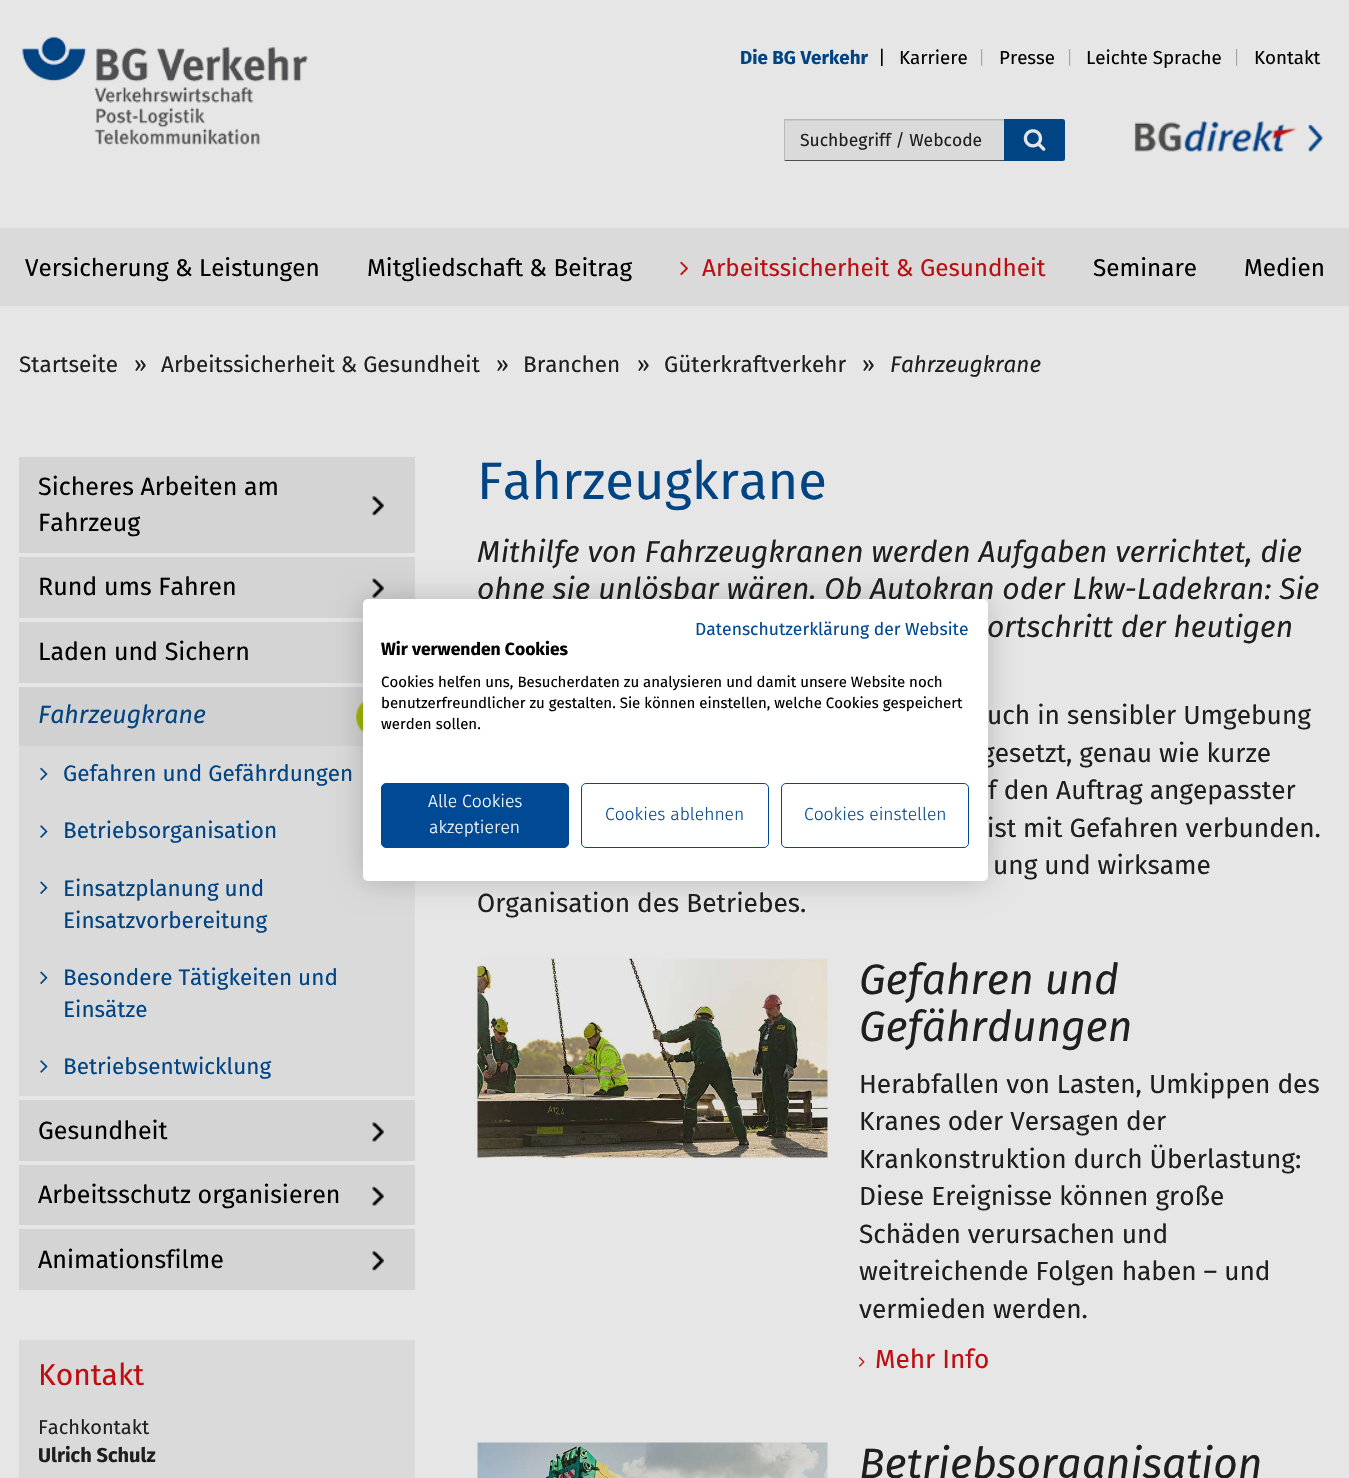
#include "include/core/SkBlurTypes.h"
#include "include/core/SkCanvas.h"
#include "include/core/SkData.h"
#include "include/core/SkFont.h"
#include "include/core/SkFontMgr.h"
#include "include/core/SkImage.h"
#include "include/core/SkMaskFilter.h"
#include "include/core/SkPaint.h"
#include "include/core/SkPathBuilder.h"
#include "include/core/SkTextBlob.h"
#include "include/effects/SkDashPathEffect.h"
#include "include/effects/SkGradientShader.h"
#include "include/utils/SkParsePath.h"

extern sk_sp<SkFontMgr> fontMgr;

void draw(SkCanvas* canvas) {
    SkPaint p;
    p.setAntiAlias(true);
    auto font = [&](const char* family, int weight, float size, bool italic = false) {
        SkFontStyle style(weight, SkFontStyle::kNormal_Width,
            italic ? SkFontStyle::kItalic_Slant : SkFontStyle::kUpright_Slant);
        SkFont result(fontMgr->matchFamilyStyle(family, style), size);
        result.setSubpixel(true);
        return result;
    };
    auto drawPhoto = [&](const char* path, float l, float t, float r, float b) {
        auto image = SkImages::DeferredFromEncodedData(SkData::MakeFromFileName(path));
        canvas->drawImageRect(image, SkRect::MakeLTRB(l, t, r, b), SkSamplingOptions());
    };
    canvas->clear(0xFFE6E6E6);
    auto font1 = font("Fira Sans", 700, 18.75f);
    p.setColor(0xFF004484);
    canvas->drawString("Die BG Verkehr", 740, 64, font1, p);
    auto font2 = font("Fira Sans", 400, 18.75f);
    p.setColor(0xFF000000);
    canvas->drawString("|", 878, 64, font2, p);
    canvas->drawString("Karriere", 899, 64, font2, p);
    auto font3 = font("Fira Sans", 100, 18.75f);
    canvas->drawString("|", 978, 64, font3, p);
    canvas->drawString("Presse", 999, 64, font2, p);
    canvas->drawString("|", 1066, 64, font3, p);
    canvas->drawString("Leichte Sprache", 1086, 64, font2, p);
    canvas->drawString("|", 1233, 64, font3, p);
    canvas->drawString("Kontakt", 1254, 64, font2, p);
    drawPhoto("media/1.png", 22, 36, 308, 145);
    {
        const struct { float l, t, r, b; SkColor color; } items[] = {
            {785, 121, 1004, 160, 0xFFDBDADA},
            {785, 120, 1008, 121, 0xFFCBCACA},
            {784, 119, 1009, 120, 0xFFB8B8B8},
            {784, 160, 1009, 161, 0xFF4D4D4D},
            {784, 119, 785, 161, 0xFFB8B8B8},
        };
        for (auto [l, t, r, b, color] : items) {
            p.setColor(color);
            canvas->drawRect(SkRect::MakeLTRB(l, t, r, b), p);
        }
    }
    auto font4 = font("Fira Sans", 400, 17.5f);
    p.setColor(0xFF1F1F1F);
    canvas->drawString("Suchbegriff / Webcode", 800, 146, font4, p);
    p.setColor(0xFF004484);
    canvas->drawRect(SkRect::MakeLTRB(1004, 119, 1007, 161), p);
    canvas->drawRoundRect(SkRect::MakeLTRB(1004, 119, 1065, 161), 2.5f, 2.5f, p);
    drawPhoto("media/2.png", 1023, 129, 1046, 151);
    drawPhoto("media/3.png", 1134, 121, 1323, 152);
    p.setColor(0xFFDBDADA);
    canvas->drawRect(SkRect::MakeLTRB(0, 228, 1349, 306), p);
    auto font5 = font("Fira Sans", 400, 24.25f);
    p.setColor(0xFF000000);
    canvas->drawString("Versicherung & Leistungen", 25, 276, font5, p);
    canvas->drawString("Mitgliedschaft & Beitrag", 367, 276, font5, p);
    drawPhoto("media/4.png", 680, 261, 688, 276);
    p.setColor(0xFFBF0E12);
    canvas->drawString("Arbeitssicherheit & Gesundheit", 702, 276, font5, p);
    p.setColor(0xFF000000);
    canvas->drawString("Seminare", 1093, 276, font5, p);
    canvas->drawString("Medien", 1244, 276, font5, p);
    auto font6 = font("Fira Sans", 400, 22.5f);
    p.setColor(0xFF1F1F1F);
    {
        const struct { const char* s; float x, y; } items[] = {
            {"Startseite", 19, 372},
            {"»", 134, 372},
            {"Arbeitssicherheit & Gesundheit", 161, 372},
            {"»", 496, 372},
            {"Branchen", 523, 372},
            {"»", 637, 372},
            {"Güterkraftverkehr", 664, 372},
            {"»", 862, 372},
        };
        for (auto [s, x, y] : items) {
            canvas->drawString(s, x, y, font6, p);
        }
    }
    auto font7 = font("Fira Sans", 400, 22.5f, true);
    canvas->drawString("Fahrzeugkrane", 890, 372, font7, p);
    p.setColor(0xFFD5D4D4);
    canvas->drawRect(SkRect::MakeLTRB(19, 457, 415, 553), p);
    drawPhoto("media/5.png", 372, 496, 384, 516);
    auto font8 = font("Fira Sans", 400, 25);
    p.setColor(0xFF000000);
    canvas->drawString("Sicheres Arbeiten am", 38, 495, font8, p);
    canvas->drawString("Fahrzeug", 38, 531, font8, p);
    p.setColor(0xFFD5D4D4);
    canvas->drawRect(SkRect::MakeLTRB(19, 557, 415, 618), p);
    drawPhoto("media/6.png", 372, 578, 384, 598);
    p.setColor(0xFF000000);
    canvas->drawString("Rund ums Fahren", 38, 595, font8, p);
    p.setColor(0xFFD5D4D4);
    canvas->drawRect(SkRect::MakeLTRB(19, 622, 363, 683), p);
    p.setColor(0xFF000000);
    canvas->drawString("Laden und Sichern", 38, 660, font8, p);
    p.setColor(0xFFD1D1D1);
    canvas->drawRect(SkRect::MakeLTRB(19, 687, 363, 746), p);
    drawPhoto("media/7.png", 356, 701, 363, 733);
    auto font9 = font("Fira Sans", 400, 25, true);
    p.setColor(0xFF004484);
    canvas->drawString("Fahrzeugkrane", 38, 723, font9, p);
    p.setColor(0xFFDBDADA);
    canvas->drawRect(SkRect::MakeLTRB(19, 746, 363, 860), p);
    drawPhoto("media/8.png", 40, 767, 48, 781);
    p.setColor(0xFF004484);
    canvas->drawString("Gefahren und Gefährdungen", 63, 781, font6, p);
    drawPhoto("media/9.png", 40, 825, 48, 838);
    canvas->drawString("Betriebsorganisation", 63, 838, font6, p);
    p.setColor(0xFFDBDADA);
    canvas->drawRect(SkRect::MakeLTRB(19, 860, 415, 1096), p);
    drawPhoto("media/10.png", 40, 881, 48, 894);
    p.setColor(0xFF004484);
    canvas->drawString("Einsatzplanung und", 63, 896, font6, p);
    canvas->drawString("Einsatzvorbereitung", 63, 928, font6, p);
    drawPhoto("media/10.png", 40, 971, 48, 984);
    canvas->drawString("Besondere Tätigkeiten und", 63, 985, font6, p);
    canvas->drawString("Einsätze", 63, 1017, font6, p);
    drawPhoto("media/9.png", 40, 1060, 48, 1073);
    canvas->drawString("Betriebsentwicklung", 63, 1074, font6, p);
    p.setColor(0xFFD5D4D4);
    canvas->drawRect(SkRect::MakeLTRB(19, 1100, 415, 1161), p);
    drawPhoto("media/11.png", 372, 1122, 384, 1142);
    p.setColor(0xFF000000);
    canvas->drawString("Gesundheit", 38, 1139, font8, p);
    p.setColor(0xFFD5D4D4);
    canvas->drawRect(SkRect::MakeLTRB(19, 1165, 415, 1225), p);
    drawPhoto("media/12.png", 372, 1186, 384, 1206);
    p.setColor(0xFF000000);
    canvas->drawString("Arbeitsschutz organisieren", 38, 1203, font8, p);
    p.setColor(0xFFD5D4D4);
    canvas->drawRect(SkRect::MakeLTRB(19, 1229, 415, 1290), p);
    drawPhoto("media/13.png", 372, 1251, 384, 1271);
    p.setColor(0xFF000000);
    canvas->drawString("Animationsfilme", 38, 1268, font8, p);
    p.setColor(0xFFDBDADA);
    canvas->drawRect(SkRect::MakeLTRB(19, 1340, 415, 1478), p);
    auto font10 = font("Fira Sans", 400, 30);
    p.setColor(0xFFBF0E12);
    canvas->drawString("Kontakt", 38, 1385, font10, p);
    auto font11 = font("Fira Sans", 400, 20);
    p.setColor(0xFF1F1F1F);
    canvas->drawString("Fachkontakt", 38, 1434, font11, p);
    auto font12 = font("Fira Sans", 700, 20);
    canvas->drawString("Ulrich Schulz", 38, 1462, font12, p);
    auto font13 = font("Fira Sans", 400, 52.5f);
    p.setColor(0xFF004484);
    canvas->drawString("Fahrzeugkrane", 477, 499, font13, p);
    auto font14 = font("Fira Sans", 400, 30, true);
    p.setColor(0xFF1F1F1F);
    {
        const struct { const char* s; float x, y; } items[] = {
            {"Mithilfe von Fahrzeugkranen werden Aufgaben verrichtet, die", 477, 562},
            {"ohne sie unlösbar wären. Ob Autokran oder Lkw-Ladekran: Sie", 477, 599},
            {"ortschritt der heutigen", 987, 637},
        };
        for (auto [s, x, y] : items) {
            canvas->drawString(s, x, y, font14, p);
        }
    }
    auto font15 = font("Fira Sans", 400, 26.25f);
    {
        const struct { const char* s; float x, y; } items[] = {
            {"uch in sensibler Umgebung", 987, 724},
            {"gesetzt, genau wie kurze", 981, 762},
            {"f den Auftrag angepasster", 988, 799},
            {"ist mit Gefahren verbunden.", 987, 837},
            {"ung und wirksame", 993, 874},
            {"Organisation des Betriebes.", 477, 912},
        };
        for (auto [s, x, y] : items) {
            canvas->drawString(s, x, y, font15, p);
        }
    }
    drawPhoto("media/14.png", 477, 958, 828, 1158);
    auto font16 = font("Fira Sans", 400, 42.5f, true);
    canvas->drawString("Gefahren und", 859, 994, font16, p);
    canvas->drawString("Gefährdungen", 859, 1041, font16, p);
    {
        const struct { const char* s; float x, y; } items[] = {
            {"Herabfallen von Lasten, Umkippen des", 859, 1093},
            {"Kranes oder Versagen der", 859, 1130},
            {"Krankonstruktion durch Überlastung:", 859, 1168},
            {"Diese Ereignisse können große", 859, 1205},
            {"Schäden verursachen und", 859, 1243},
            {"weitreichende Folgen haben – und", 859, 1280},
            {"vermieden werden.", 859, 1318},
        };
        for (auto [s, x, y] : items) {
            canvas->drawString(s, x, y, font15, p);
        }
    }
    drawPhoto("media/15.png", 858, 1357, 865, 1367);
    p.setColor(0xFFBF0E12);
    canvas->drawString("Mehr Info", 875, 1368, font15, p);
    drawPhoto("media/16.png", 477, 1442, 828, 1478);
    p.setColor(0xFF1F1F1F);
    canvas->drawString("Betriebsorganisation", 859, 1478, font16, p);
    p.setColor(0x33000000);
    p.setMaskFilter(SkMaskFilter::MakeBlur(kNormal_SkBlurStyle, 15));
    canvas->drawRoundRect(SkRect::MakeLTRB(363, 599, 988, 881), 5, 5, p);
    p.setMaskFilter(nullptr);
    p.setColor(0xFFFFFFFF);
    canvas->drawRoundRect(SkRect::MakeLTRB(363, 599, 988, 881), 5, 5, p);
    p.setColor(0xFF004994);
    canvas->drawString("Datenschutzerklärung der Website", 695, 635, font4, p);
    auto font17 = font("Fira Sans", 700, 17.5f);
    p.setColor(0xFF000000);
    canvas->drawString("Wir verwenden Cookies", 381, 655, font17, p);
    auto font18 = font("Fira Sans", 400, 15);
    {
        const struct { const char* s; float x, y; } items[] = {
            {"Cookies helfen uns, Besucherdaten zu analysieren und damit unsere Website noch", 381, 687},
            {"benutzerfreundlicher zu gestalten. Sie können einstellen, welche Cookies gespeichert", 381, 708},
            {"werden sollen.", 381, 729},
        };
        for (auto [s, x, y] : items) {
            canvas->drawString(s, x, y, font18, p);
        }
    }
    p.setColor(0xFF004994);
    canvas->drawRoundRect(SkRect::MakeLTRB(381.5f, 783.5f, 568.5f, 847.5f), 4.5f, 4.5f, p);
    p.setStyle(SkPaint::kStroke_Style);
    p.setStrokeWidth(1);
    canvas->drawRoundRect(SkRect::MakeLTRB(381.5f, 783.5f, 568.5f, 847.5f), 4.5f, 4.5f, p);
    auto font19 = font("Fira Sans", 300, 17.5f);
    p.setStyle(SkPaint::kFill_Style);
    p.setColor(0xFFFFFFFF);
    canvas->drawString("Alle Cookies", 428, 807, font19, p);
    canvas->drawString("akzeptieren", 429, 833, font19, p);
    p.setStyle(SkPaint::kStroke_Style);
    p.setColor(0xFF004994);
    canvas->drawRoundRect(SkRect::MakeLTRB(581.5f, 783.5f, 768.5f, 847.5f), 4.5f, 4.5f, p);
    p.setStyle(SkPaint::kFill_Style);
    canvas->drawString("Cookies ablehnen", 605, 820, font19, p);
    p.setStyle(SkPaint::kStroke_Style);
    canvas->drawRoundRect(SkRect::MakeLTRB(781.5f, 783.5f, 968.5f, 847.5f), 4.5f, 4.5f, p);
    p.setStyle(SkPaint::kFill_Style);
    canvas->drawString("Cookies einstellen", 804, 820, font19, p);
}
